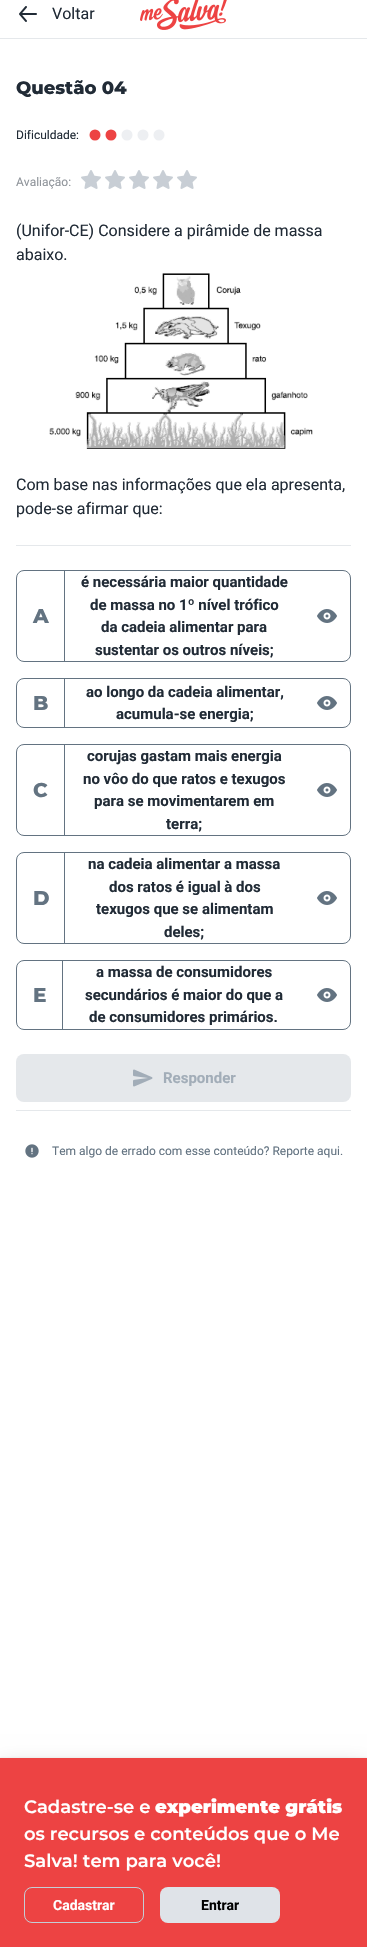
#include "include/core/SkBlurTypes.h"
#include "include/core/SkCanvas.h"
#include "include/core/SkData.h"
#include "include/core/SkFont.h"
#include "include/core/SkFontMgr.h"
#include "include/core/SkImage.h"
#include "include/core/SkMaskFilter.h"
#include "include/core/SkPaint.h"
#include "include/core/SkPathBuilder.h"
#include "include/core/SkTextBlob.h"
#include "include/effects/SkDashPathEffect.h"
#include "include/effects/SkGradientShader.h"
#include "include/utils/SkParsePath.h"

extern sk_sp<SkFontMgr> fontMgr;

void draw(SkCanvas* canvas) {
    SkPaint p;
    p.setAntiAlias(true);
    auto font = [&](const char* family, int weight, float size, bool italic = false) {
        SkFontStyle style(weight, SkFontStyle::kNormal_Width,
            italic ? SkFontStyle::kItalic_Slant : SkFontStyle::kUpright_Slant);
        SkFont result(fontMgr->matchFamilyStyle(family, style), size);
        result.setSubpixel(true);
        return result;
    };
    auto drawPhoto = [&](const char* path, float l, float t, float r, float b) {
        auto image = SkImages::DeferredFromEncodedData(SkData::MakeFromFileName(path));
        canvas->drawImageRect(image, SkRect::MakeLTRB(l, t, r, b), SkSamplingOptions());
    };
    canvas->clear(0xFFFFFFFF);
    drawPhoto("media/1.png", 19, 6, 37, 22);
    auto font1 = font("Roboto", 400, 16);
    p.setColor(0xFF212B36);
    canvas->drawString("Voltar", 52, 19, font1, p);
    drawPhoto("media/2.png", 140, 0, 227, 30);
    p.setColor(0xFFE5E8EB);
    canvas->drawRect(SkRect::MakeLTRB(0, 38, 367, 39), p);
    auto font2 = font("Montserrat", 800, 18);
    p.setColor(0xFF212B36);
    canvas->drawString("Questão 04", 16, 94, font2, p);
    auto font3 = font("Roboto", 400, 12);
    canvas->drawString("Dificuldade:", 16, 139, font3, p);
    p.setColor(0xFFED4343);
    canvas->drawCircle(95, 135, 5.5f, p);
    canvas->drawCircle(111, 135, 5.5f, p);
    p.setColor(0xFFEDEFF2);
    canvas->drawCircle(127, 135, 5.5f, p);
    canvas->drawCircle(143, 135, 5.5f, p);
    canvas->drawCircle(159, 135, 5.5f, p);
    p.setColor(0xFF90959B);
    canvas->drawString("Avaliação:", 16, 186, font3, p);
    drawPhoto("media/3.png", 81, 170, 101, 189);
    drawPhoto("media/3.png", 105, 170, 125, 189);
    drawPhoto("media/3.png", 129, 170, 149, 189);
    drawPhoto("media/3.png", 153, 170, 173, 189);
    drawPhoto("media/3.png", 177, 170, 197, 189);
    p.setColor(0xFF212B36);
    canvas->drawString("(Unifor-CE) Considere a pirâmide de massa", 16, 236, font1, p);
    canvas->drawString("abaixo.", 16, 260, font1, p);
    drawPhoto("media/4.png", 49, 273, 313, 449);
    canvas->drawString("Com base nas informações que ela apresenta,", 16, 490, font1, p);
    canvas->drawString("pode-se afirmar que:", 16, 514, font1, p);
    p.setColor(0xFFE5E8EB);
    canvas->drawRect(SkRect::MakeLTRB(16, 545, 351, 546), p);
    p.setStyle(SkPaint::kStroke_Style);
    p.setStrokeWidth(1);
    p.setColor(0xFF637381);
    canvas->drawRoundRect(SkRect::MakeLTRB(16.5f, 570.5f, 350.5f, 661.5f), 7.5f, 7.5f, p);
    p.setStyle(SkPaint::kFill_Style);
    canvas->drawRect(SkRect::MakeLTRB(64, 571, 65, 661), p);
    auto font4 = font("Montserrat", 800, 20);
    canvas->drawString("A", 33, 623, font4, p);
    auto font5 = font("Roboto", 700, 15);
    p.setColor(0xFF212B36);
    {
        const struct { const char* s; float x, y; } items[] = {
            {"é necessária maior quantidade", 81, 587},
            {"de massa no 1º nível trófico", 90, 610},
            {"da cadeia alimentar para", 101, 632},
            {"sustentar os outros níveis;", 95, 655},
        };
        for (auto [s, x, y] : items) {
            canvas->drawString(s, x, y, font5, p);
        }
    }
    drawPhoto("media/5.png", 317, 609, 337, 623);
    p.setStyle(SkPaint::kStroke_Style);
    p.setColor(0xFF637381);
    canvas->drawRoundRect(SkRect::MakeLTRB(16.5f, 678.5f, 350.5f, 727.5f), 7.5f, 7.5f, p);
    p.setStyle(SkPaint::kFill_Style);
    canvas->drawRect(SkRect::MakeLTRB(64, 679, 65, 727), p);
    canvas->drawString("B", 33, 710, font4, p);
    p.setColor(0xFF212B36);
    canvas->drawString("ao longo da cadeia alimentar,", 86, 697, font5, p);
    canvas->drawString("acumula-se energia;", 116, 719, font5, p);
    drawPhoto("media/5.png", 317, 696, 337, 710);
    p.setStyle(SkPaint::kStroke_Style);
    p.setColor(0xFF637381);
    canvas->drawRoundRect(SkRect::MakeLTRB(16.5f, 744.5f, 350.5f, 835.5f), 7.5f, 7.5f, p);
    p.setStyle(SkPaint::kFill_Style);
    canvas->drawRect(SkRect::MakeLTRB(64, 745, 65, 835), p);
    canvas->drawString("C", 33, 797, font4, p);
    p.setColor(0xFF212B36);
    {
        const struct { const char* s; float x, y; } items[] = {
            {"corujas gastam mais energia", 87, 761},
            {"no vôo do que ratos e texugos", 83, 784},
            {"para se movimentarem em", 94, 806},
            {"terra;", 166, 829},
        };
        for (auto [s, x, y] : items) {
            canvas->drawString(s, x, y, font5, p);
        }
    }
    drawPhoto("media/5.png", 317, 783, 337, 797);
    p.setStyle(SkPaint::kStroke_Style);
    p.setColor(0xFF637381);
    canvas->drawRoundRect(SkRect::MakeLTRB(16.5f, 852.5f, 350.5f, 943.5f), 7.5f, 7.5f, p);
    p.setStyle(SkPaint::kFill_Style);
    canvas->drawRect(SkRect::MakeLTRB(64, 853, 65, 943), p);
    canvas->drawString("D", 33, 905, font4, p);
    p.setColor(0xFF212B36);
    {
        const struct { const char* s; float x, y; } items[] = {
            {"na cadeia alimentar a massa", 88, 869},
            {"dos ratos é igual à dos", 109, 892},
            {"texugos que se alimentam", 96, 914},
            {"deles;", 164, 937},
        };
        for (auto [s, x, y] : items) {
            canvas->drawString(s, x, y, font5, p);
        }
    }
    drawPhoto("media/5.png", 317, 891, 337, 905);
    p.setStyle(SkPaint::kStroke_Style);
    p.setColor(0xFF637381);
    canvas->drawRoundRect(SkRect::MakeLTRB(16.5f, 960.5f, 350.5f, 1029.5f), 7.5f, 7.5f, p);
    p.setStyle(SkPaint::kFill_Style);
    canvas->drawRect(SkRect::MakeLTRB(62, 961, 63, 1029), p);
    canvas->drawString("E", 33, 1002, font4, p);
    p.setColor(0xFF212B36);
    {
        const struct { const char* s; float x, y; } items[] = {
            {"a massa de consumidores", 96, 977},
            {"secundários é maior do que a", 85, 1000},
            {"de consumidores primários.", 89, 1022},
        };
        for (auto [s, x, y] : items) {
            canvas->drawString(s, x, y, font5, p);
        }
    }
    drawPhoto("media/5.png", 317, 988, 337, 1002);
    p.setColor(0xFFE5E8EB);
    canvas->drawRoundRect(SkRect::MakeLTRB(16, 1054, 351, 1102), 8, 8, p);
    drawPhoto("media/6.png", 133, 1069, 153, 1087);
    p.setColor(0xFFA2ADB8);
    canvas->drawString("Responder", 163, 1083, font5, p);
    p.setColor(0xFFE5E8EB);
    canvas->drawRect(SkRect::MakeLTRB(16, 1110, 351, 1111), p);
    drawPhoto("media/7.png", 25, 1144, 39, 1158);
    p.setColor(0xFF637381);
    canvas->drawString("Tem algo de errado com esse conteúdo? Reporte aqui.", 52, 1155, font3, p);
    p.setColor(0x3D000000);
    p.setMaskFilter(SkMaskFilter::MakeBlur(kNormal_SkBlurStyle, 12));
    canvas->drawRect(SkRect::MakeLTRB(0, 1770, 367, 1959), p);
    p.setMaskFilter(nullptr);
    p.setColor(0x3D929F8E);
    p.setMaskFilter(SkMaskFilter::MakeBlur(kNormal_SkBlurStyle, 1));
    canvas->drawRect(SkRect::MakeLTRB(0, 1758, 367, 1947), p);
    p.setMaskFilter(nullptr);
    p.setColor(0xFFED4343);
    canvas->drawRect(SkRect::MakeLTRB(0, 1758, 367, 1947), p);
    auto font6 = font("Montserrat", 600, 18);
    p.setColor(0xFFFFFFFF);
    canvas->drawString("Cadastre-se e", 24, 1813, font6, p);
    auto font7 = font("Montserrat", 900, 18);
    canvas->drawString("experimente grátis", 155, 1813, font7, p);
    canvas->drawString("os recursos e conteúdos que o Me", 24, 1840, font6, p);
    canvas->drawString("Salva! tem para você!", 24, 1867, font6, p);
    p.setStyle(SkPaint::kStroke_Style);
    p.setColor(0xFFC4CDD5);
    canvas->drawRoundRect(SkRect::MakeLTRB(24.5f, 1887.5f, 143.5f, 1922.5f), 7.5f, 7.5f, p);
    auto font8 = font("Roboto", 700, 14);
    p.setStyle(SkPaint::kFill_Style);
    p.setColor(0xFFFFFFFF);
    canvas->drawString("Cadastrar", 53, 1910, font8, p);
    p.setColor(0xFFDFE3E8);
    canvas->drawRoundRect(SkRect::MakeLTRB(160, 1887, 280, 1923), 8, 8, p);
    p.setColor(0xFF000000);
    canvas->drawString("Entrar", 201, 1910, font8, p);
}
